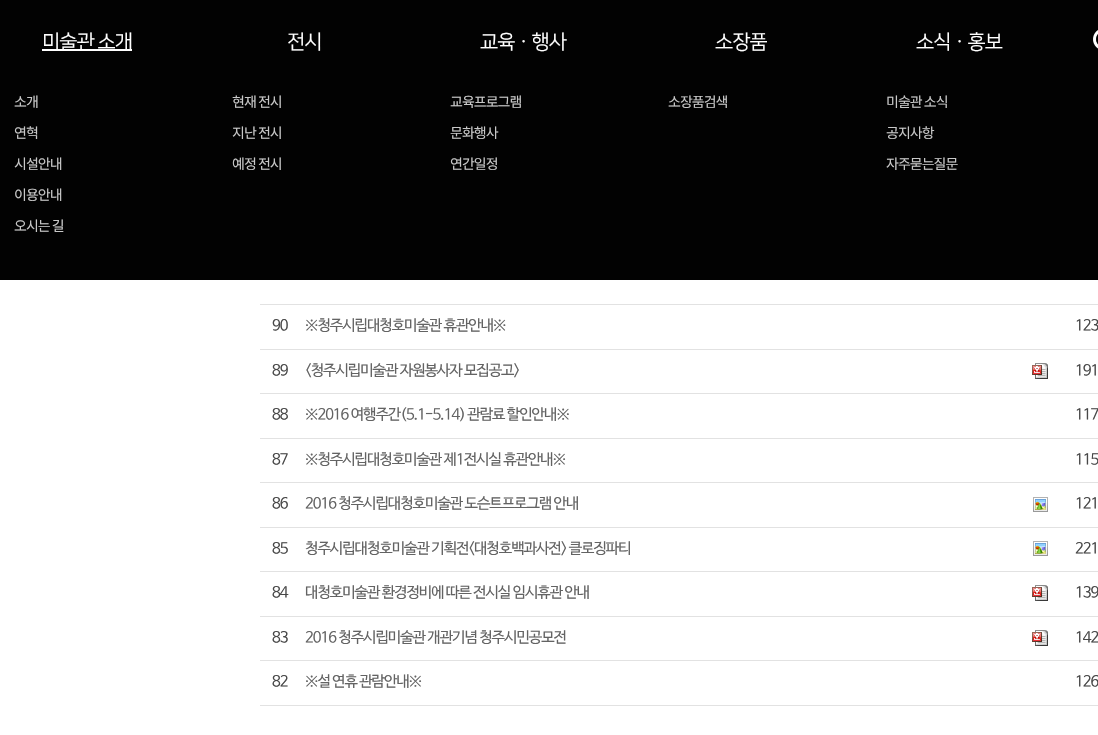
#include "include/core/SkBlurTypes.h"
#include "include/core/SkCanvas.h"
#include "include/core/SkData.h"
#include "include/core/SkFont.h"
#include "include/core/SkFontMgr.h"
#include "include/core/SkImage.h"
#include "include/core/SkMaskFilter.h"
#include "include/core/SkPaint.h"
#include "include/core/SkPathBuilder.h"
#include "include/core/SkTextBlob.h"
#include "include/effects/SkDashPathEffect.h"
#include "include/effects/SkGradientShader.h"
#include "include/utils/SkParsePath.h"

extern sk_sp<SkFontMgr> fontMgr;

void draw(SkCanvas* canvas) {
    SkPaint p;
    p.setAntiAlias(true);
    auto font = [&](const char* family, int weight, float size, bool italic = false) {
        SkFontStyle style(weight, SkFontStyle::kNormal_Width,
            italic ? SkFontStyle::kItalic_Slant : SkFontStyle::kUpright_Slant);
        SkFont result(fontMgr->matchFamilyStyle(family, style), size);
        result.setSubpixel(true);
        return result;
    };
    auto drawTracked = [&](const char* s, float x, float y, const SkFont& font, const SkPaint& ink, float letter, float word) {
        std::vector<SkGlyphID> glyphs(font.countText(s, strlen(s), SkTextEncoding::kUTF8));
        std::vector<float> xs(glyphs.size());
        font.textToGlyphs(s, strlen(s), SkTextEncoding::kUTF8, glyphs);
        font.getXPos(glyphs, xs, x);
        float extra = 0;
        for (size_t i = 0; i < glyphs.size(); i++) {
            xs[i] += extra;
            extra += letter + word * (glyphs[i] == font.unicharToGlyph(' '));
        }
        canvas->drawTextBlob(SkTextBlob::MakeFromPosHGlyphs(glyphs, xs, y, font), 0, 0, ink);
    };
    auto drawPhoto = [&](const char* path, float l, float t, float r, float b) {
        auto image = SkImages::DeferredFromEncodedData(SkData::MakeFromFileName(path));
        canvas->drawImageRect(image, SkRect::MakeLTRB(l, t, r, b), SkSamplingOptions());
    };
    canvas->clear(0xFFFFFFFF);
    p.setColor(0xFF020202);
    canvas->drawRect(SkRect::MakeLTRB(0, 0, 1098, 280), p);
    p.setColor(0xFFFFFFFF);
    canvas->drawRect(SkRect::MakeLTRB(42, 49, 132, 51), p);
    auto font1 = font("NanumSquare", 400, 20);
    drawTracked("미술관 소개", 42, 48, font1, p, -1, 0);
    auto font2 = font("Noto Sans CJK KR", 400, 14);
    p.setColor(0xFFC8C8C8);
    {
        const struct { const char* s; float x, y; } items[] = {
            {"소개", 14, 107},
            {"연혁", 14, 138},
            {"시설안내", 14, 169},
            {"이용안내", 14, 200},
            {"오시는 길", 14, 231},
        };
        for (auto [s, x, y] : items) {
            drawTracked(s, x, y, font2, p, -1, 0);
        }
    }
    p.setColor(0xFFFFFFFF);
    drawTracked("전시", 287, 48, font1, p, -1, 0);
    p.setColor(0xFFC8C8C8);
    {
        const struct { const char* s; float x, y; } items[] = {
            {"현재 전시", 232, 107},
            {"지난 전시", 232, 138},
            {"예정 전시", 232, 169},
        };
        for (auto [s, x, y] : items) {
            drawTracked(s, x, y, font2, p, -1, 0);
        }
    }
    p.setColor(0xFFFFFFFF);
    drawTracked("교육ㆍ행사", 480, 48, font1, p, -1, 0);
    p.setColor(0xFFC8C8C8);
    {
        const struct { const char* s; float x, y; } items[] = {
            {"교육프로그램", 450, 107},
            {"문화행사", 450, 138},
            {"연간일정", 450, 169},
        };
        for (auto [s, x, y] : items) {
            drawTracked(s, x, y, font2, p, -1, 0);
        }
    }
    p.setColor(0xFFFFFFFF);
    drawTracked("소장품", 715, 48, font1, p, -1, 0);
    p.setColor(0xFFC8C8C8);
    drawTracked("소장품검색", 668, 107, font2, p, -1, 0);
    p.setColor(0xFFFFFFFF);
    drawTracked("소식ㆍ홍보", 916, 48, font1, p, -1, 0);
    p.setColor(0xFFC8C8C8);
    {
        const struct { const char* s; float x, y; } items[] = {
            {"미술관 소식", 886, 107},
            {"공지사항", 886, 138},
            {"자주묻는질문", 886, 169},
        };
        for (auto [s, x, y] : items) {
            drawTracked(s, x, y, font2, p, -1, 0);
        }
    }
    drawPhoto("media/1.png", 1093, 30, 1098, 49);
    p.setColor(0xFFE2E2E2);
    canvas->drawRect(SkRect::MakeLTRB(260, 304, 1098, 305), p);
    canvas->drawRect(SkRect::MakeLTRB(260, 349, 1098, 350), p);
    auto font3 = font("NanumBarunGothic", 400, 15);
    p.setColor(0xFF484848);
    drawTracked("90", 272, 330, font3, p, -1, 0);
    p.setColor(0xFF636363);
    drawTracked("※청주시립대청호미술관 휴관안내※", 305, 330, font3, p, -1, 0);
    p.setColor(0xFF484848);
    drawTracked("123", 1075, 330, font3, p, -1, 0);
    p.setColor(0xFFE2E2E2);
    canvas->drawRect(SkRect::MakeLTRB(260, 393, 1098, 394), p);
    p.setColor(0xFF484848);
    drawTracked("89", 272, 375, font3, p, -1, 0);
    p.setColor(0xFF636363);
    drawTracked("<청주시립미술관 자원봉사자 모집공고>", 305, 375, font3, p, -1, 0);
    drawPhoto("media/2.png", 1032, 363, 1048, 379);
    p.setColor(0xFF484848);
    drawTracked("191", 1075, 375, font3, p, -1, 0);
    p.setColor(0xFFE2E2E2);
    canvas->drawRect(SkRect::MakeLTRB(260, 438, 1098, 439), p);
    p.setColor(0xFF484848);
    drawTracked("88", 272, 419, font3, p, -1, 0);
    p.setColor(0xFF636363);
    drawTracked("※2016 여행주간(5.1-5.14) 관람료 할인안내※", 305, 419, font3, p, -1, 0);
    p.setColor(0xFF484848);
    drawTracked("117", 1075, 419, font3, p, -1, 0);
    p.setColor(0xFFE2E2E2);
    canvas->drawRect(SkRect::MakeLTRB(260, 482, 1098, 483), p);
    p.setColor(0xFF484848);
    drawTracked("87", 272, 464, font3, p, -1, 0);
    p.setColor(0xFF636363);
    drawTracked("※청주시립대청호미술관 제1전시실 휴관안내※", 305, 464, font3, p, -1, 0);
    p.setColor(0xFF484848);
    drawTracked("115", 1075, 464, font3, p, -1, 0);
    p.setColor(0xFFE2E2E2);
    canvas->drawRect(SkRect::MakeLTRB(260, 527, 1098, 528), p);
    p.setColor(0xFF484848);
    drawTracked("86", 272, 508, font3, p, -1, 0);
    p.setColor(0xFF636363);
    drawTracked("2016 청주시립대청호미술관 도슨트프로그램 안내", 305, 508, font3, p, -1, 0);
    drawPhoto("media/3.png", 1033, 497, 1048, 512);
    p.setColor(0xFF484848);
    drawTracked("121", 1075, 508, font3, p, -1, 0);
    p.setColor(0xFFE2E2E2);
    canvas->drawRect(SkRect::MakeLTRB(260, 571, 1098, 572), p);
    p.setColor(0xFF484848);
    drawTracked("85", 272, 553, font3, p, -1, 0);
    p.setColor(0xFF636363);
    drawTracked("청주시립대청호미술관 기획전<대청호백과사전> 클로징파티", 305, 553, font3, p, -1, 0);
    drawPhoto("media/3.png", 1033, 541, 1048, 556);
    p.setColor(0xFF484848);
    drawTracked("221", 1075, 553, font3, p, -1, 0);
    p.setColor(0xFFE2E2E2);
    canvas->drawRect(SkRect::MakeLTRB(260, 616, 1098, 617), p);
    p.setColor(0xFF484848);
    drawTracked("84", 272, 597, font3, p, -1, 0);
    p.setColor(0xFF636363);
    drawTracked("대청호미술관 환경정비에 따른 전시실 임시휴관 안내", 305, 597, font3, p, -1, 0);
    drawPhoto("media/2.png", 1032, 585, 1048, 601);
    p.setColor(0xFF484848);
    drawTracked("139", 1075, 597, font3, p, -1, 0);
    p.setColor(0xFFE2E2E2);
    canvas->drawRect(SkRect::MakeLTRB(260, 660, 1098, 661), p);
    p.setColor(0xFF484848);
    drawTracked("83", 272, 642, font3, p, -1, 0);
    p.setColor(0xFF636363);
    drawTracked("2016 청주시립미술관 개관기념 청주시민공모전", 305, 642, font3, p, -1, 0);
    drawPhoto("media/2.png", 1032, 630, 1048, 646);
    p.setColor(0xFF484848);
    drawTracked("142", 1075, 642, font3, p, -1, 0);
    p.setColor(0xFFE2E2E2);
    canvas->drawRect(SkRect::MakeLTRB(260, 705, 1098, 706), p);
    p.setColor(0xFF484848);
    drawTracked("82", 272, 686, font3, p, -1, 0);
    p.setColor(0xFF636363);
    drawTracked("※설 연휴 관람안내※", 305, 686, font3, p, -1, 0);
    p.setColor(0xFF484848);
    drawTracked("126", 1075, 686, font3, p, -1, 0);
}
